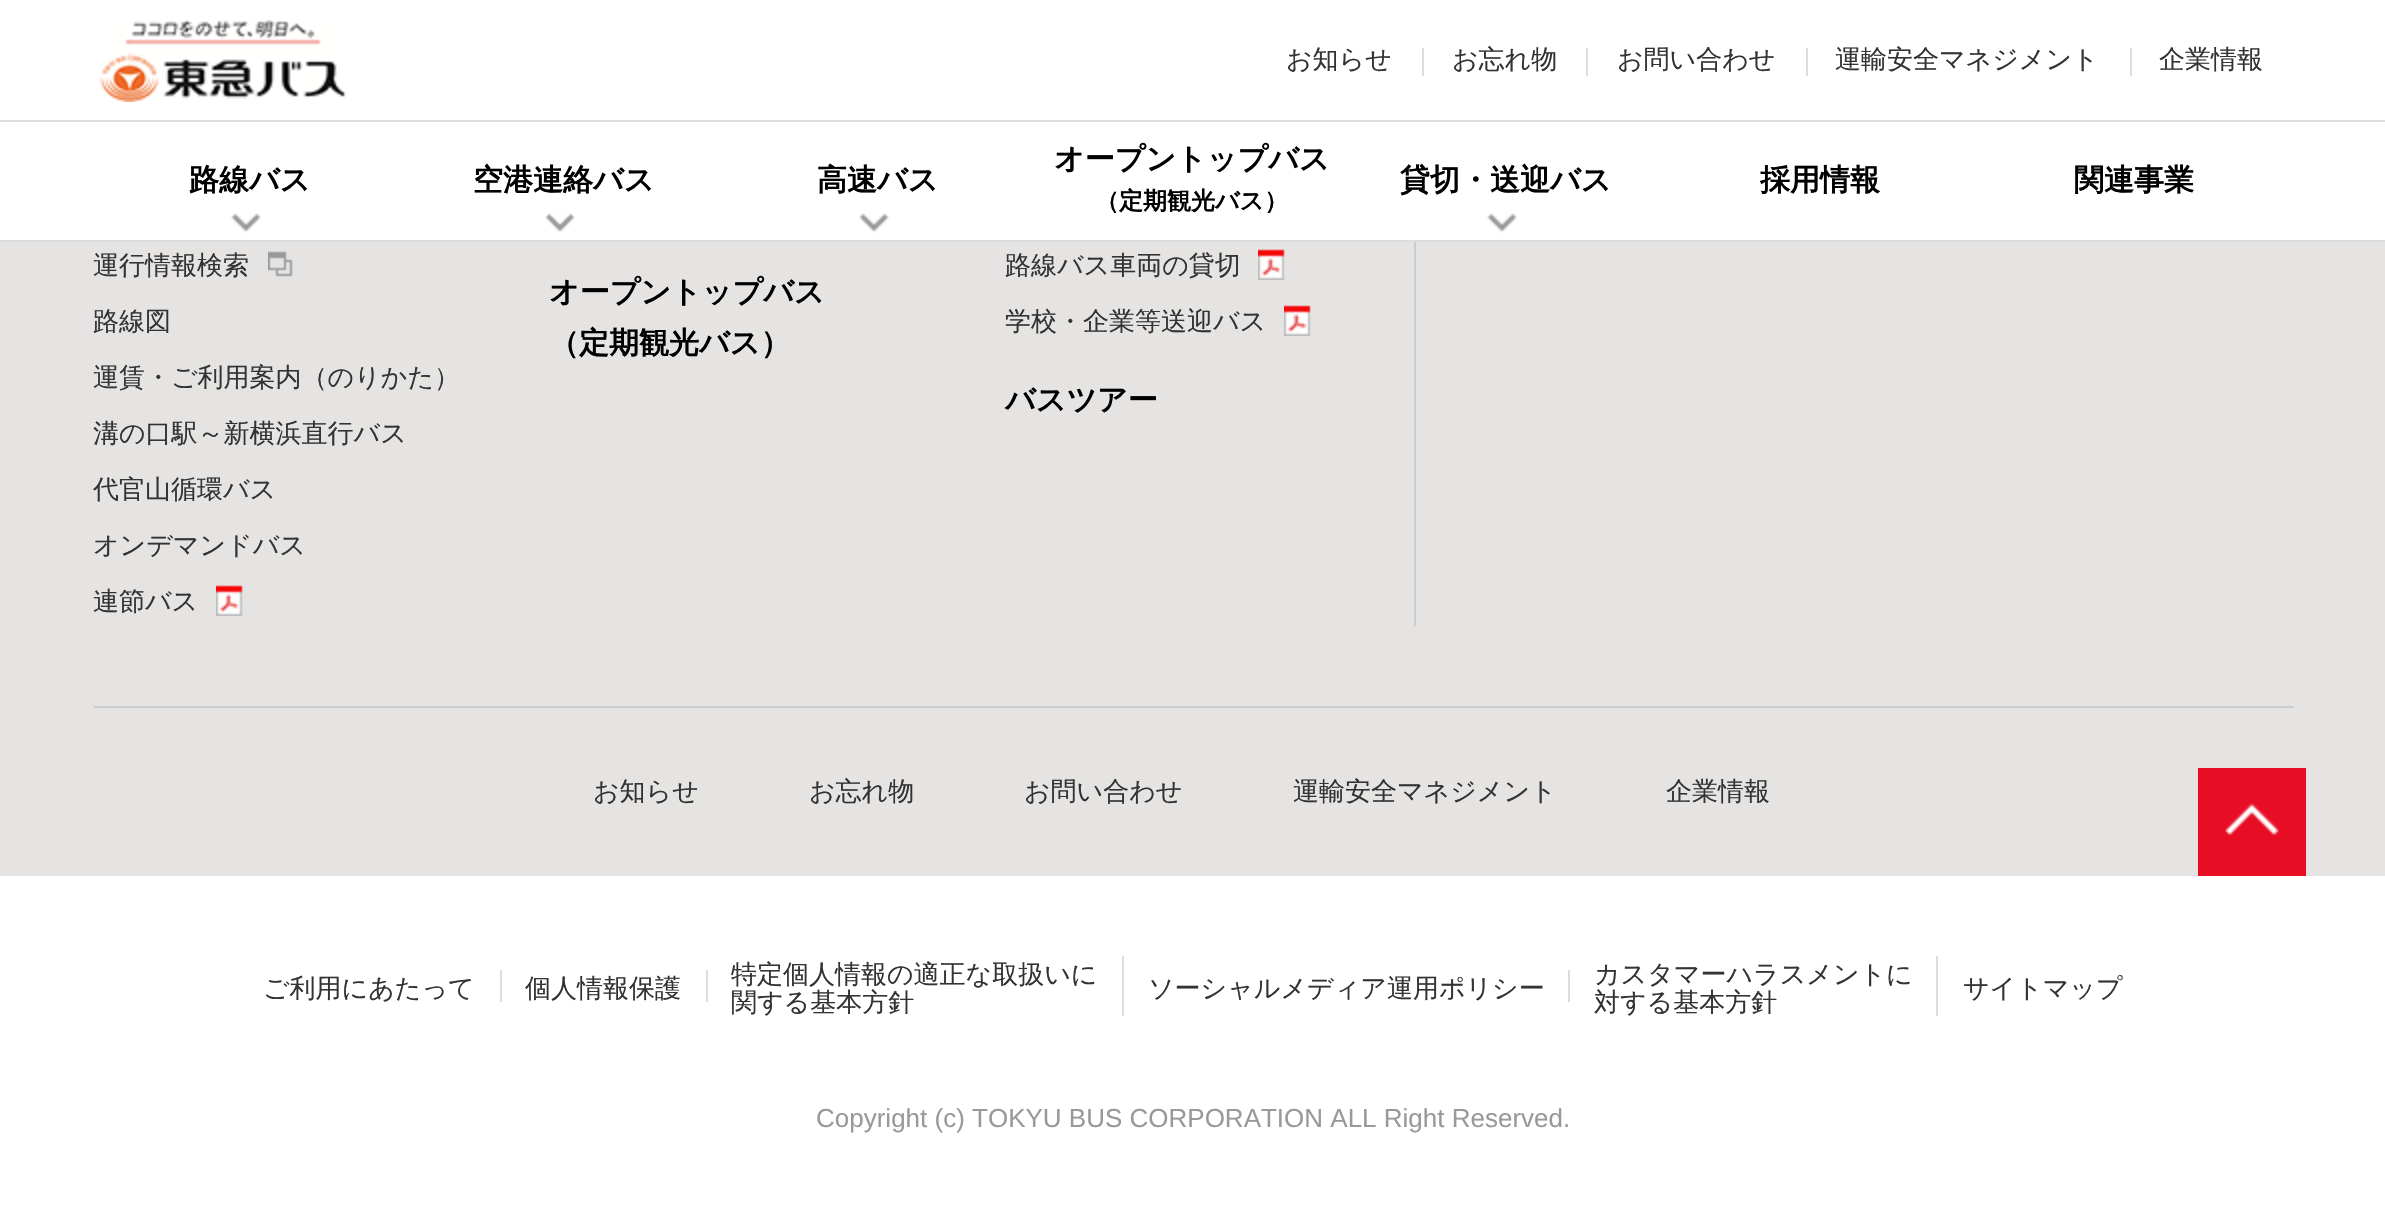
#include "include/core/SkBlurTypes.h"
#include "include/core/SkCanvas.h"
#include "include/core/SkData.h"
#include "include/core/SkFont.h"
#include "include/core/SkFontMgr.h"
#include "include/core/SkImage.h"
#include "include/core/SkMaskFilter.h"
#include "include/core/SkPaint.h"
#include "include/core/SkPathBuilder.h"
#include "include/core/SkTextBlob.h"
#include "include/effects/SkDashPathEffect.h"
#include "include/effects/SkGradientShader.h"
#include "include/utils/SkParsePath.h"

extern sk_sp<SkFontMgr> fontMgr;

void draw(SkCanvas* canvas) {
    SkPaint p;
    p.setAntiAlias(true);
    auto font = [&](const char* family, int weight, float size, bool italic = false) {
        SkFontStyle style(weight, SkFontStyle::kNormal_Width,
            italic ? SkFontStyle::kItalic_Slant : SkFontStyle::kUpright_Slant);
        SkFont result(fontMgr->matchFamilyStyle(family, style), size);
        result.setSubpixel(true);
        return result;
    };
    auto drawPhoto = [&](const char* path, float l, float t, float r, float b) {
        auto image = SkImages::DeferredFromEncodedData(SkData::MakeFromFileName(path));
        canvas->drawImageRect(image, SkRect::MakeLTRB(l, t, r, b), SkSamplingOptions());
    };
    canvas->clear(0xFFFFFFFF);
    p.setColor(0xFFDDDDDD);
    canvas->drawRect(SkRect::MakeLTRB(0, 120, 2385, 122), p);
    drawPhoto("media/1.png", 99, 20, 346, 102);
    auto font1 = font("WenQuanYi Zen Hei", 500, 26);
    p.setColor(0xFF333333);
    canvas->drawString("お知らせ", 1286, 68, font1, p);
    p.setColor(0xFFDDDDDD);
    canvas->drawRect(SkRect::MakeLTRB(1422, 48, 1424, 76), p);
    p.setColor(0xFF333333);
    canvas->drawString("お忘れ物", 1452, 68, font1, p);
    p.setColor(0xFFDDDDDD);
    canvas->drawRect(SkRect::MakeLTRB(1586, 48, 1588, 76), p);
    p.setColor(0xFF333333);
    canvas->drawString("お問い合わせ", 1617, 68, font1, p);
    p.setColor(0xFFDDDDDD);
    canvas->drawRect(SkRect::MakeLTRB(1806, 48, 1808, 76), p);
    p.setColor(0xFF333333);
    canvas->drawString("運輸安全マネジメント", 1835, 68, font1, p);
    p.setColor(0xFFDDDDDD);
    canvas->drawRect(SkRect::MakeLTRB(2130, 48, 2132, 76), p);
    p.setColor(0xFF333333);
    canvas->drawString("企業情報", 2159, 68, font1, p);
    p.setColor(0xFFDDDDDD);
    canvas->drawRect(SkRect::MakeLTRB(0, 240, 2385, 242), p);
    auto font2 = font("WenQuanYi Zen Hei", 700, 30);
    p.setColor(0xFF000000);
    canvas->drawString("路線バス", 189, 190, font2, p);
    drawPhoto("media/2.png", 231, 213, 261, 233);
    canvas->drawString("空港連絡バス", 473, 190, font2, p);
    drawPhoto("media/2.png", 545, 213, 575, 233);
    canvas->drawString("高速バス", 817, 190, font2, p);
    drawPhoto("media/2.png", 859, 213, 889, 233);
    canvas->drawString("オープントップバス", 1054, 169, font2, p);
    auto font3 = font("WenQuanYi Zen Hei", 700, 24);
    canvas->drawString("（定期観光バス）", 1095, 209, font3, p);
    canvas->drawString("貸切・送迎バス", 1400, 190, font2, p);
    drawPhoto("media/2.png", 1487, 213, 1517, 233);
    canvas->drawString("採用情報", 1760, 190, font2, p);
    canvas->drawString("関連事業", 2074, 190, font2, p);
    p.setColor(0xFFE6E4E2);
    canvas->drawRect(SkRect::MakeLTRB(0, 242, 2385, 876), p);
    p.setColor(0xFF333333);
    canvas->drawString("運行情報検索", 93, 274, font1, p);
    drawPhoto("media/3.png", 268, 251, 293, 277);
    {
        const struct { const char* s; float x, y; } items[] = {
            {"路線図", 93, 330},
            {"運賃・ご利用案内（のりかた）", 93, 386},
            {"溝の口駅～新横浜直行バス", 93, 442},
            {"代官山循環バス", 93, 498},
            {"オンデマンドバス", 93, 554},
            {"連節バス", 93, 610},
        };
        for (auto [s, x, y] : items) {
            canvas->drawString(s, x, y, font1, p);
        }
    }
    drawPhoto("media/4.png", 216, 585, 243, 616);
    p.setColor(0xFF000000);
    canvas->drawString("オープントップバス", 549, 302, font2, p);
    canvas->drawString("（定期観光バス）", 549, 353, font2, p);
    p.setColor(0xFF333333);
    canvas->drawString("路線バス車両の貸切", 1005, 274, font1, p);
    drawPhoto("media/4.png", 1258, 249, 1285, 280);
    canvas->drawString("学校・企業等送迎バス", 1005, 330, font1, p);
    drawPhoto("media/4.png", 1284, 305, 1311, 336);
    p.setColor(0xFF000000);
    canvas->drawString("バスツアー", 1005, 410, font2, p);
    p.setColor(0xFFCCCCCC);
    canvas->drawRect(SkRect::MakeLTRB(1414, 242, 1416, 626), p);
    canvas->drawRect(SkRect::MakeLTRB(94, 706, 2294, 708), p);
    p.setColor(0xFF333333);
    {
        const struct { const char* s; float x, y; } items[] = {
            {"お知らせ", 593, 800},
            {"お忘れ物", 809, 800},
            {"お問い合わせ", 1024, 800},
            {"運輸安全マネジメント", 1293, 800},
            {"企業情報", 1666, 800},
        };
        for (auto [s, x, y] : items) {
            canvas->drawString(s, x, y, font1, p);
        }
    }
    drawPhoto("media/5.png", 2198, 768, 2306, 876);
    p.setColor(0xFFDDDDDD);
    canvas->drawRect(SkRect::MakeLTRB(500, 970, 502, 1002), p);
    p.setColor(0xFF333333);
    canvas->drawString("ご利用にあたって", 263, 997, font1, p);
    p.setColor(0xFFDDDDDD);
    canvas->drawRect(SkRect::MakeLTRB(706, 970, 708, 1002), p);
    p.setColor(0xFF333333);
    canvas->drawString("個人情報保護", 525, 997, font1, p);
    p.setColor(0xFFDDDDDD);
    canvas->drawRect(SkRect::MakeLTRB(1122, 956, 1124, 1016), p);
    p.setColor(0xFF333333);
    canvas->drawString("特定個人情報の適正な取扱いに", 731, 983, font1, p);
    canvas->drawString("関する基本方針", 731, 1011, font1, p);
    p.setColor(0xFFDDDDDD);
    canvas->drawRect(SkRect::MakeLTRB(1568, 970, 1570, 1002), p);
    p.setColor(0xFF333333);
    canvas->drawString("ソーシャルメディア運用ポリシー", 1148, 997, font1, p);
    p.setColor(0xFFDDDDDD);
    canvas->drawRect(SkRect::MakeLTRB(1936, 956, 1938, 1016), p);
    p.setColor(0xFF333333);
    {
        const struct { const char* s; float x, y; } items[] = {
            {"カスタマーハラスメントに", 1594, 983},
            {"対する基本方針", 1594, 1011},
            {"サイトマップ", 1963, 997},
        };
        for (auto [s, x, y] : items) {
            canvas->drawString(s, x, y, font1, p);
        }
    }
    auto font4 = font("Liberation Sans", 400, 26);
    p.setColor(0xFF999999);
    canvas->drawString("Copyright (c) TOKYU BUS CORPORATION ALL Right Reserved.", 816, 1127, font4, p);
}
